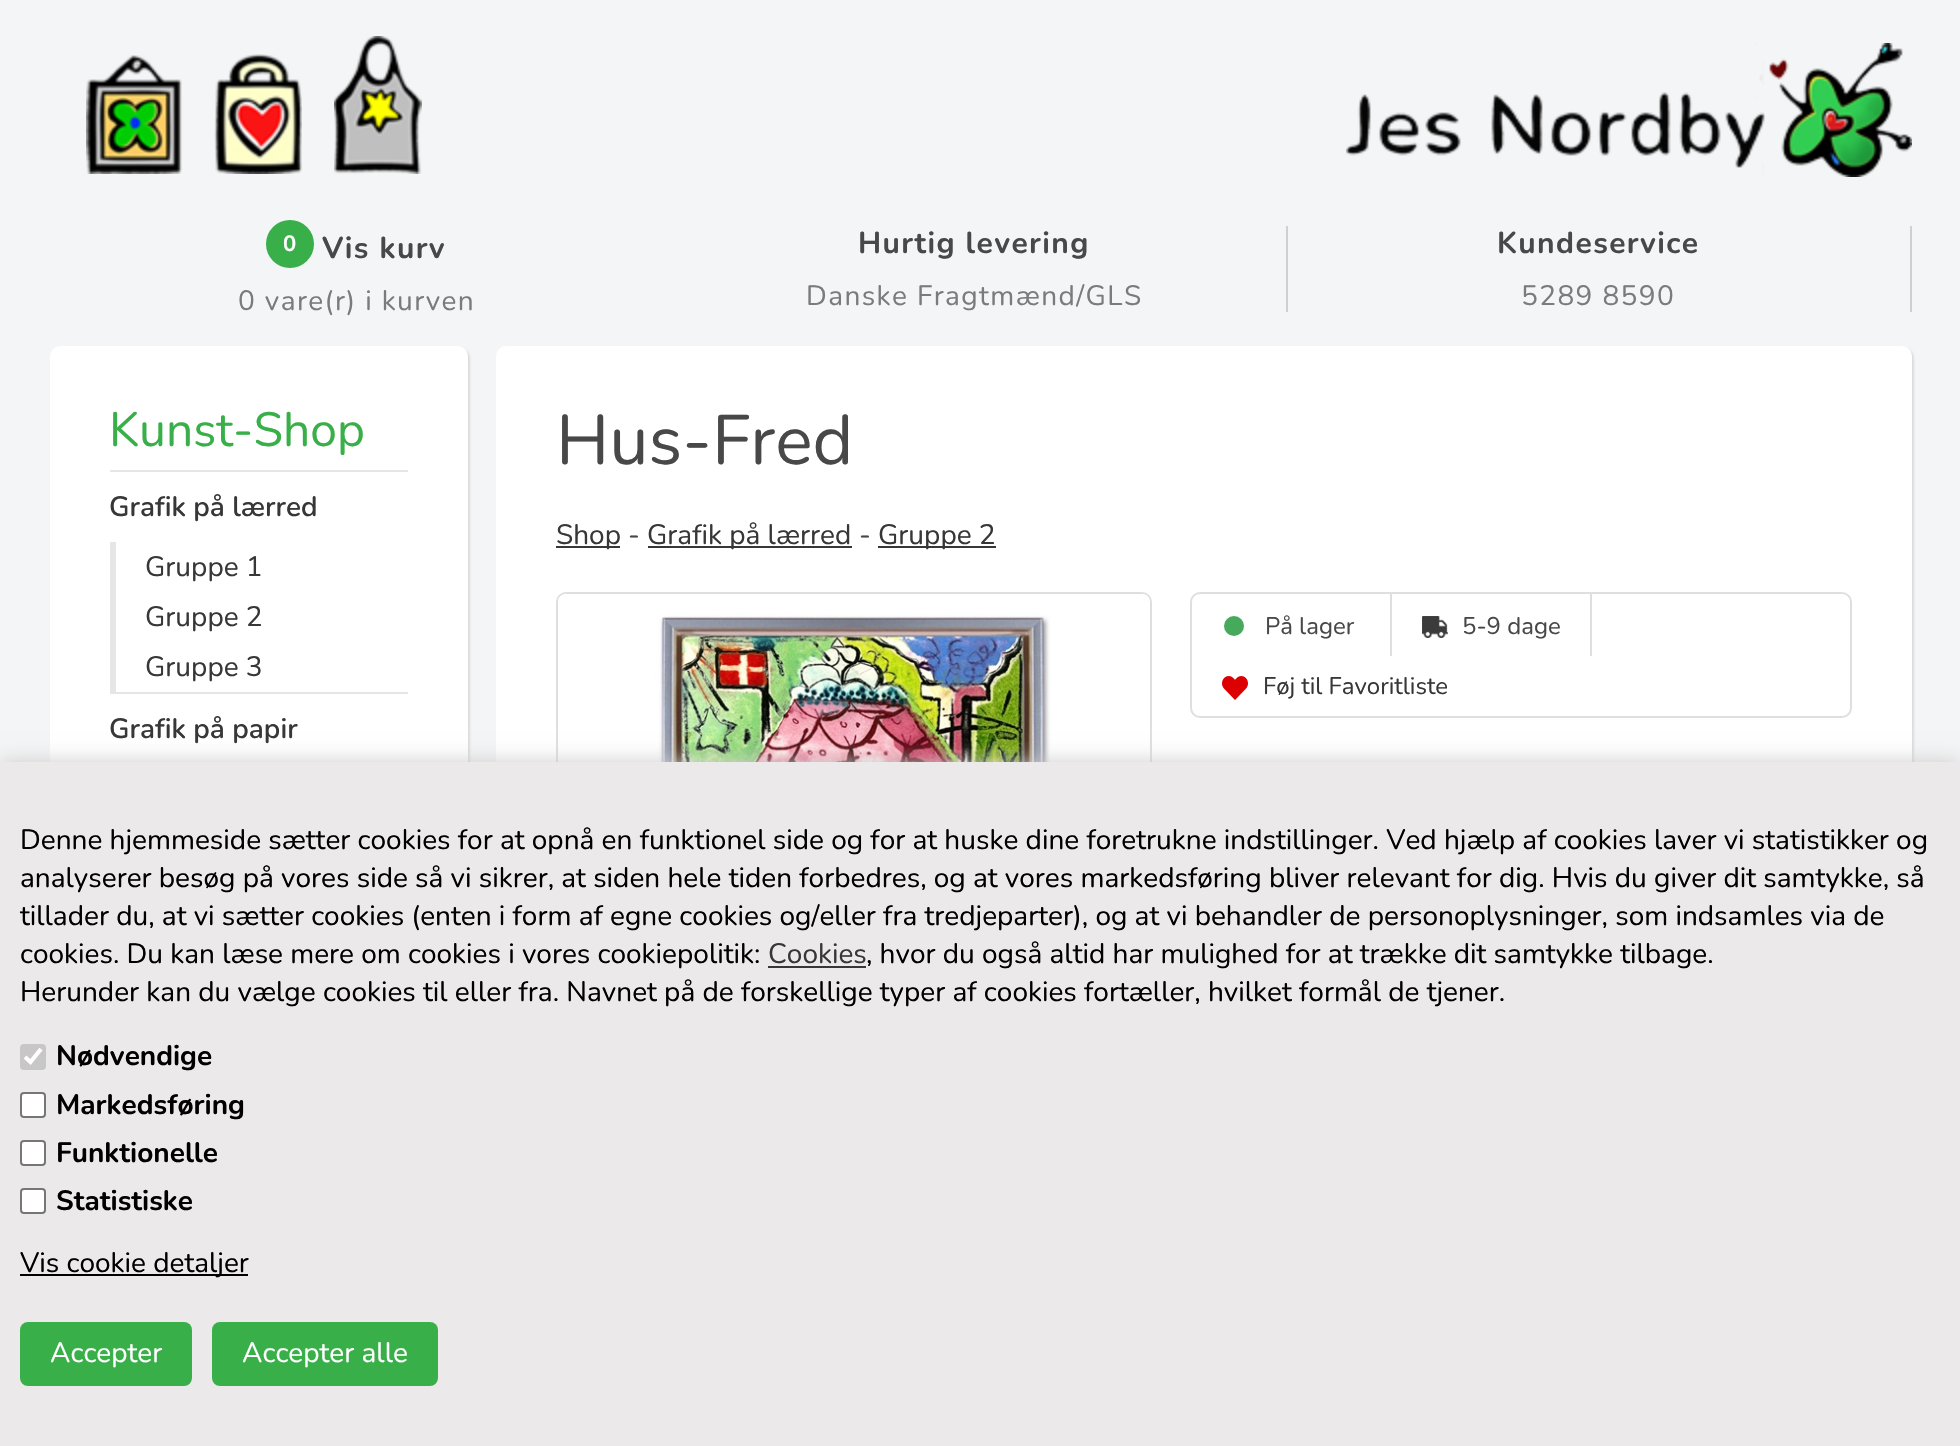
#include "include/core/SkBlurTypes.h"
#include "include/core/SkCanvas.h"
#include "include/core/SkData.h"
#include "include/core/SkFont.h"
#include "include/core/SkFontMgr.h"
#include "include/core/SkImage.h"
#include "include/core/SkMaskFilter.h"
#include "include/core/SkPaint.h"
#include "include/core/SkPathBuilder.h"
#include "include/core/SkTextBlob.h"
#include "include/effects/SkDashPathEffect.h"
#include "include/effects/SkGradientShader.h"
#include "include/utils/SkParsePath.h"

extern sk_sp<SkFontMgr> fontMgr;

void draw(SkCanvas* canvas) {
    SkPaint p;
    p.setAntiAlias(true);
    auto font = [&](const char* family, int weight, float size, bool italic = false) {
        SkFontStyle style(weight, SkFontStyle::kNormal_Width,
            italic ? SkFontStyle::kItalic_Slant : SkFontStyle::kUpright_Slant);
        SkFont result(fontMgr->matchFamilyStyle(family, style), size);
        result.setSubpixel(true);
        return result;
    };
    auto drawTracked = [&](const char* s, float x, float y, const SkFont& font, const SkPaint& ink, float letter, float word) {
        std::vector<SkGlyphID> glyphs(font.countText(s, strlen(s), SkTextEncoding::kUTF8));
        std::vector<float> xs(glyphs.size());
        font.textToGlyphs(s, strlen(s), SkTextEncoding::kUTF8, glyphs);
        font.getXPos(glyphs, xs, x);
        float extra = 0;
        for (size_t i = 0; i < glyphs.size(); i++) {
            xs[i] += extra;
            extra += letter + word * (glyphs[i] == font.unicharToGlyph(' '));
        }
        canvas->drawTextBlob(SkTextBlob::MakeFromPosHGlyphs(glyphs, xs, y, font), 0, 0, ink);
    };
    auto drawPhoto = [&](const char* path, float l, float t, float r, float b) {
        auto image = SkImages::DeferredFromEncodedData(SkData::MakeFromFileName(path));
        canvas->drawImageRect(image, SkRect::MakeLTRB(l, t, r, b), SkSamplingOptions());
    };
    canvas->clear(0xFFF4F5F6);
    drawPhoto("media/1.png", 86, 55, 182, 174);
    drawPhoto("media/2.png", 214, 54, 302, 174);
    drawPhoto("media/3.png", 334, 36, 422, 174);
    drawPhoto("media/4.png", 1346, 43, 1912, 177);
    p.setColor(0xFF38AF48);
    canvas->drawCircle(290, 244, 24, p);
    auto font1 = font("Nunito", 700, 22);
    p.setColor(0xFFFFFFFF);
    drawTracked("0", 283, 251, font1, p, 1.4f, 0);
    auto font2 = font("Nunito", 700, 30);
    p.setColor(0xFF484848);
    drawTracked("Vis kurv", 322, 258, font2, p, 1.4f, 0);
    auto font3 = font("Nunito", 400, 28);
    p.setColor(0xFF7B7B7B);
    drawTracked("0 vare(r) i kurven", 238, 310, font3, p, 1.4f, 0);
    p.setColor(0xFFD0D0D0);
    canvas->drawRect(SkRect::MakeLTRB(1286, 226, 1288, 312), p);
    p.setColor(0xFF484848);
    drawTracked("Hurtig levering", 858, 253, font2, p, 1.4f, 0);
    p.setColor(0xFF7B7B7B);
    drawTracked("Danske Fragtmænd/GLS", 806, 305, font3, p, 1.4f, 0);
    p.setColor(0xFFD0D0D0);
    canvas->drawRect(SkRect::MakeLTRB(1910, 226, 1912, 312), p);
    p.setColor(0xFF484848);
    drawTracked("Kundeservice", 1497, 253, font2, p, 1.4f, 0);
    p.setColor(0xFF7B7B7B);
    drawTracked("5289 8590", 1521, 305, font3, p, 1.4f, 0);
    p.setColor(0x1A000000);
    p.setMaskFilter(SkMaskFilter::MakeBlur(kNormal_SkBlurStyle, 1));
    canvas->drawRoundRect(SkRect::MakeLTRB(52, 348, 470, 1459), 10, 10, p);
    p.setMaskFilter(nullptr);
    p.setColor(0xFFFFFFFF);
    canvas->drawRoundRect(SkRect::MakeLTRB(50, 346, 468, 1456), 10, 10, p);
    p.setColor(0xFFE6E6E6);
    canvas->drawRect(SkRect::MakeLTRB(110, 470, 408, 472), p);
    auto font4 = font("Nunito", 400, 48);
    p.setColor(0xFF38AF48);
    canvas->drawString("Kunst-Shop", 109, 446, font4, p);
    p.setColor(0xFFE6E6E6);
    canvas->drawRect(SkRect::MakeLTRB(110, 692, 408, 694), p);
    auto font5 = font("Nunito", 600, 28);
    p.setColor(0xFF373737);
    canvas->drawString("Grafik på lærred", 109, 516, font5, p);
    p.setColor(0xFFE6E6E6);
    canvas->drawRect(SkRect::MakeLTRB(110, 542, 116, 692), p);
    p.setColor(0xFF373737);
    {
        const struct { const char* s; float x, y; } items[] = {
            {"Gruppe 1", 145, 576},
            {"Gruppe 2", 145, 626},
            {"Gruppe 3", 145, 676},
        };
        for (auto [s, x, y] : items) {
            canvas->drawString(s, x, y, font3, p);
        }
    }
    canvas->drawString("Grafik på papir", 109, 738, font5, p);
    p.setColor(0x1A000000);
    p.setMaskFilter(SkMaskFilter::MakeBlur(kNormal_SkBlurStyle, 1));
    canvas->drawRoundRect(SkRect::MakeLTRB(498, 348, 1914, 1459), 10, 10, p);
    p.setMaskFilter(nullptr);
    p.setColor(0xFFFFFFFF);
    canvas->drawRoundRect(SkRect::MakeLTRB(496, 346, 1912, 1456), 10, 10, p);
    auto font6 = font("Nunito", 400, 70);
    p.setColor(0xFF484848);
    canvas->drawString("Hus-Fred", 556, 464, font6, p);
    p.setColor(0xFF373737);
    canvas->drawRect(SkRect::MakeLTRB(556, 546, 620, 548), p);
    canvas->drawString("Shop", 556, 544, font3, p);
    p.setColor(0xFF484848);
    canvas->drawString("-", 628, 544, font3, p);
    p.setColor(0xFF373737);
    canvas->drawRect(SkRect::MakeLTRB(648, 546, 852, 548), p);
    canvas->drawString("Grafik på lærred", 647, 544, font3, p);
    p.setColor(0xFF484848);
    canvas->drawString("-", 859, 544, font3, p);
    p.setColor(0xFF373737);
    canvas->drawRect(SkRect::MakeLTRB(878, 546, 996, 548), p);
    canvas->drawString("Gruppe 2", 878, 544, font3, p);
    p.setStyle(SkPaint::kStroke_Style);
    p.setStrokeWidth(2);
    p.setColor(0xFFDFDFDF);
    canvas->drawRoundRect(SkRect::MakeLTRB(557, 593, 1151, 1185), 9, 9, p);
    drawPhoto("media/5.png", 558, 594, 1150, 762);
    canvas->drawRoundRect(SkRect::MakeLTRB(1191, 593, 1851, 717), 9, 9, p);
    p.setStyle(SkPaint::kFill_Style);
    canvas->drawRect(SkRect::MakeLTRB(1390, 594, 1392, 656), p);
    drawPhoto("media/6.png", 1224, 616, 1244, 636);
    auto font7 = font("Nunito", 400, 24);
    p.setColor(0xFF484848);
    canvas->drawString("På lager", 1265, 634, font7, p);
    drawPhoto("media/7.png", 1422, 616, 1448, 638);
    p.setColor(0xFFDFDFDF);
    canvas->drawRect(SkRect::MakeLTRB(1590, 594, 1592, 656), p);
    p.setColor(0xFF484848);
    canvas->drawString("5-9 dage", 1462, 634, font7, p);
    drawPhoto("media/8.png", 1222, 676, 1248, 700);
    p.setColor(0xFF373737);
    canvas->drawString("Føj til Favoritliste", 1263, 694, font7, p);
    p.setColor(0xFFCCCCCC);
    p.setMaskFilter(SkMaskFilter::MakeBlur(kNormal_SkBlurStyle, 10));
    canvas->drawRect(SkRect::MakeLTRB(0, 762, 1960, 1446), p);
    p.setMaskFilter(nullptr);
    p.setColor(0xFFEBE9EA);
    canvas->drawRect(SkRect::MakeLTRB(0, 762, 1960, 1446), p);
    p.setColor(0xFF000000);
    {
        const struct { const char* s; float x, y; } items[] = {
            {"Denne hjemmeside sætter cookies for at opnå en funktionel side og for at huske dine foretrukne indstillinger. Ved hjælp af cookies laver vi statistikker og", 20, 849},
            {"analyserer besøg på vores side så vi sikrer, at siden hele tiden forbedres, og at vores markedsføring bliver relevant for dig. Hvis du giver dit samtykke, så", 20, 887},
            {"tillader du, at vi sætter cookies (enten i form af egne cookies og/eller fra tredjeparter), og at vi behandler de personoplysninger, som indsamles via de", 20, 925},
            {"cookies. Du kan læse mere om cookies i vores cookiepolitik:", 20, 963},
        };
        for (auto [s, x, y] : items) {
            canvas->drawString(s, x, y, font3, p);
        }
    }
    p.setColor(0xFF373737);
    canvas->drawString("Cookies", 768, 963, font3, p);
    canvas->drawRect(SkRect::MakeLTRB(768, 966, 866, 968), p);
    p.setColor(0xFF000000);
    canvas->drawString(", hvor du også altid har mulighed for at trække dit samtykke tilbage.", 866, 963, font3, p);
    canvas->drawString("Herunder kan du vælge cookies til eller fra. Navnet på de forskellige typer af cookies fortæller, hvilket formål de tjener.", 20, 1001, font3, p);
    p.setColor(0xFFC8C7C7);
    canvas->drawRoundRect(SkRect::MakeLTRB(20, 1044, 46, 1070), 4, 4, p);
    p.setStyle(SkPaint::kStroke_Style);
    p.setStrokeWidth(4.2f);
    p.setColor(0xFFFFFFFF);
    canvas->drawPath(SkPathBuilder().moveTo(25, 1057).lineTo(30.5f, 1062).lineTo(41, 1049).detach(), p);
    auto font8 = font("Nunito", 700, 28);
    p.setStyle(SkPaint::kFill_Style);
    p.setColor(0xFF000000);
    canvas->drawString("Nødvendige", 56, 1065, font8, p);
    p.setColor(0xFFFFFFFF);
    canvas->drawRoundRect(SkRect::MakeLTRB(21, 1093, 45, 1117), 3, 3, p);
    p.setStyle(SkPaint::kStroke_Style);
    p.setStrokeWidth(2);
    p.setColor(0xFF767676);
    canvas->drawRoundRect(SkRect::MakeLTRB(21, 1093, 45, 1117), 3, 3, p);
    p.setStyle(SkPaint::kFill_Style);
    p.setColor(0xFF000000);
    canvas->drawString("Markedsføring", 56, 1114, font8, p);
    p.setColor(0xFFFFFFFF);
    canvas->drawRoundRect(SkRect::MakeLTRB(21, 1141, 45, 1165), 3, 3, p);
    p.setStyle(SkPaint::kStroke_Style);
    p.setColor(0xFF767676);
    canvas->drawRoundRect(SkRect::MakeLTRB(21, 1141, 45, 1165), 3, 3, p);
    p.setStyle(SkPaint::kFill_Style);
    p.setColor(0xFF000000);
    canvas->drawString("Funktionelle", 56, 1162, font8, p);
    p.setColor(0xFFFFFFFF);
    canvas->drawRoundRect(SkRect::MakeLTRB(21, 1189, 45, 1213), 3, 3, p);
    p.setStyle(SkPaint::kStroke_Style);
    p.setColor(0xFF767676);
    canvas->drawRoundRect(SkRect::MakeLTRB(21, 1189, 45, 1213), 3, 3, p);
    p.setStyle(SkPaint::kFill_Style);
    p.setColor(0xFF000000);
    canvas->drawString("Statistiske", 56, 1210, font8, p);
    canvas->drawRect(SkRect::MakeLTRB(20, 1274, 248, 1276), p);
    canvas->drawString("Vis cookie detaljer", 20, 1272, font3, p);
    p.setColor(0xFF38AF48);
    canvas->drawRoundRect(SkRect::MakeLTRB(20, 1322, 192, 1386), 8, 8, p);
    p.setColor(0xFFFFFFFF);
    canvas->drawString("Accepter", 50, 1362, font3, p);
    p.setColor(0xFF38AF48);
    canvas->drawRoundRect(SkRect::MakeLTRB(212, 1322, 438, 1386), 8, 8, p);
    p.setColor(0xFFFFFFFF);
    canvas->drawString("Accepter alle", 242, 1362, font3, p);
}
